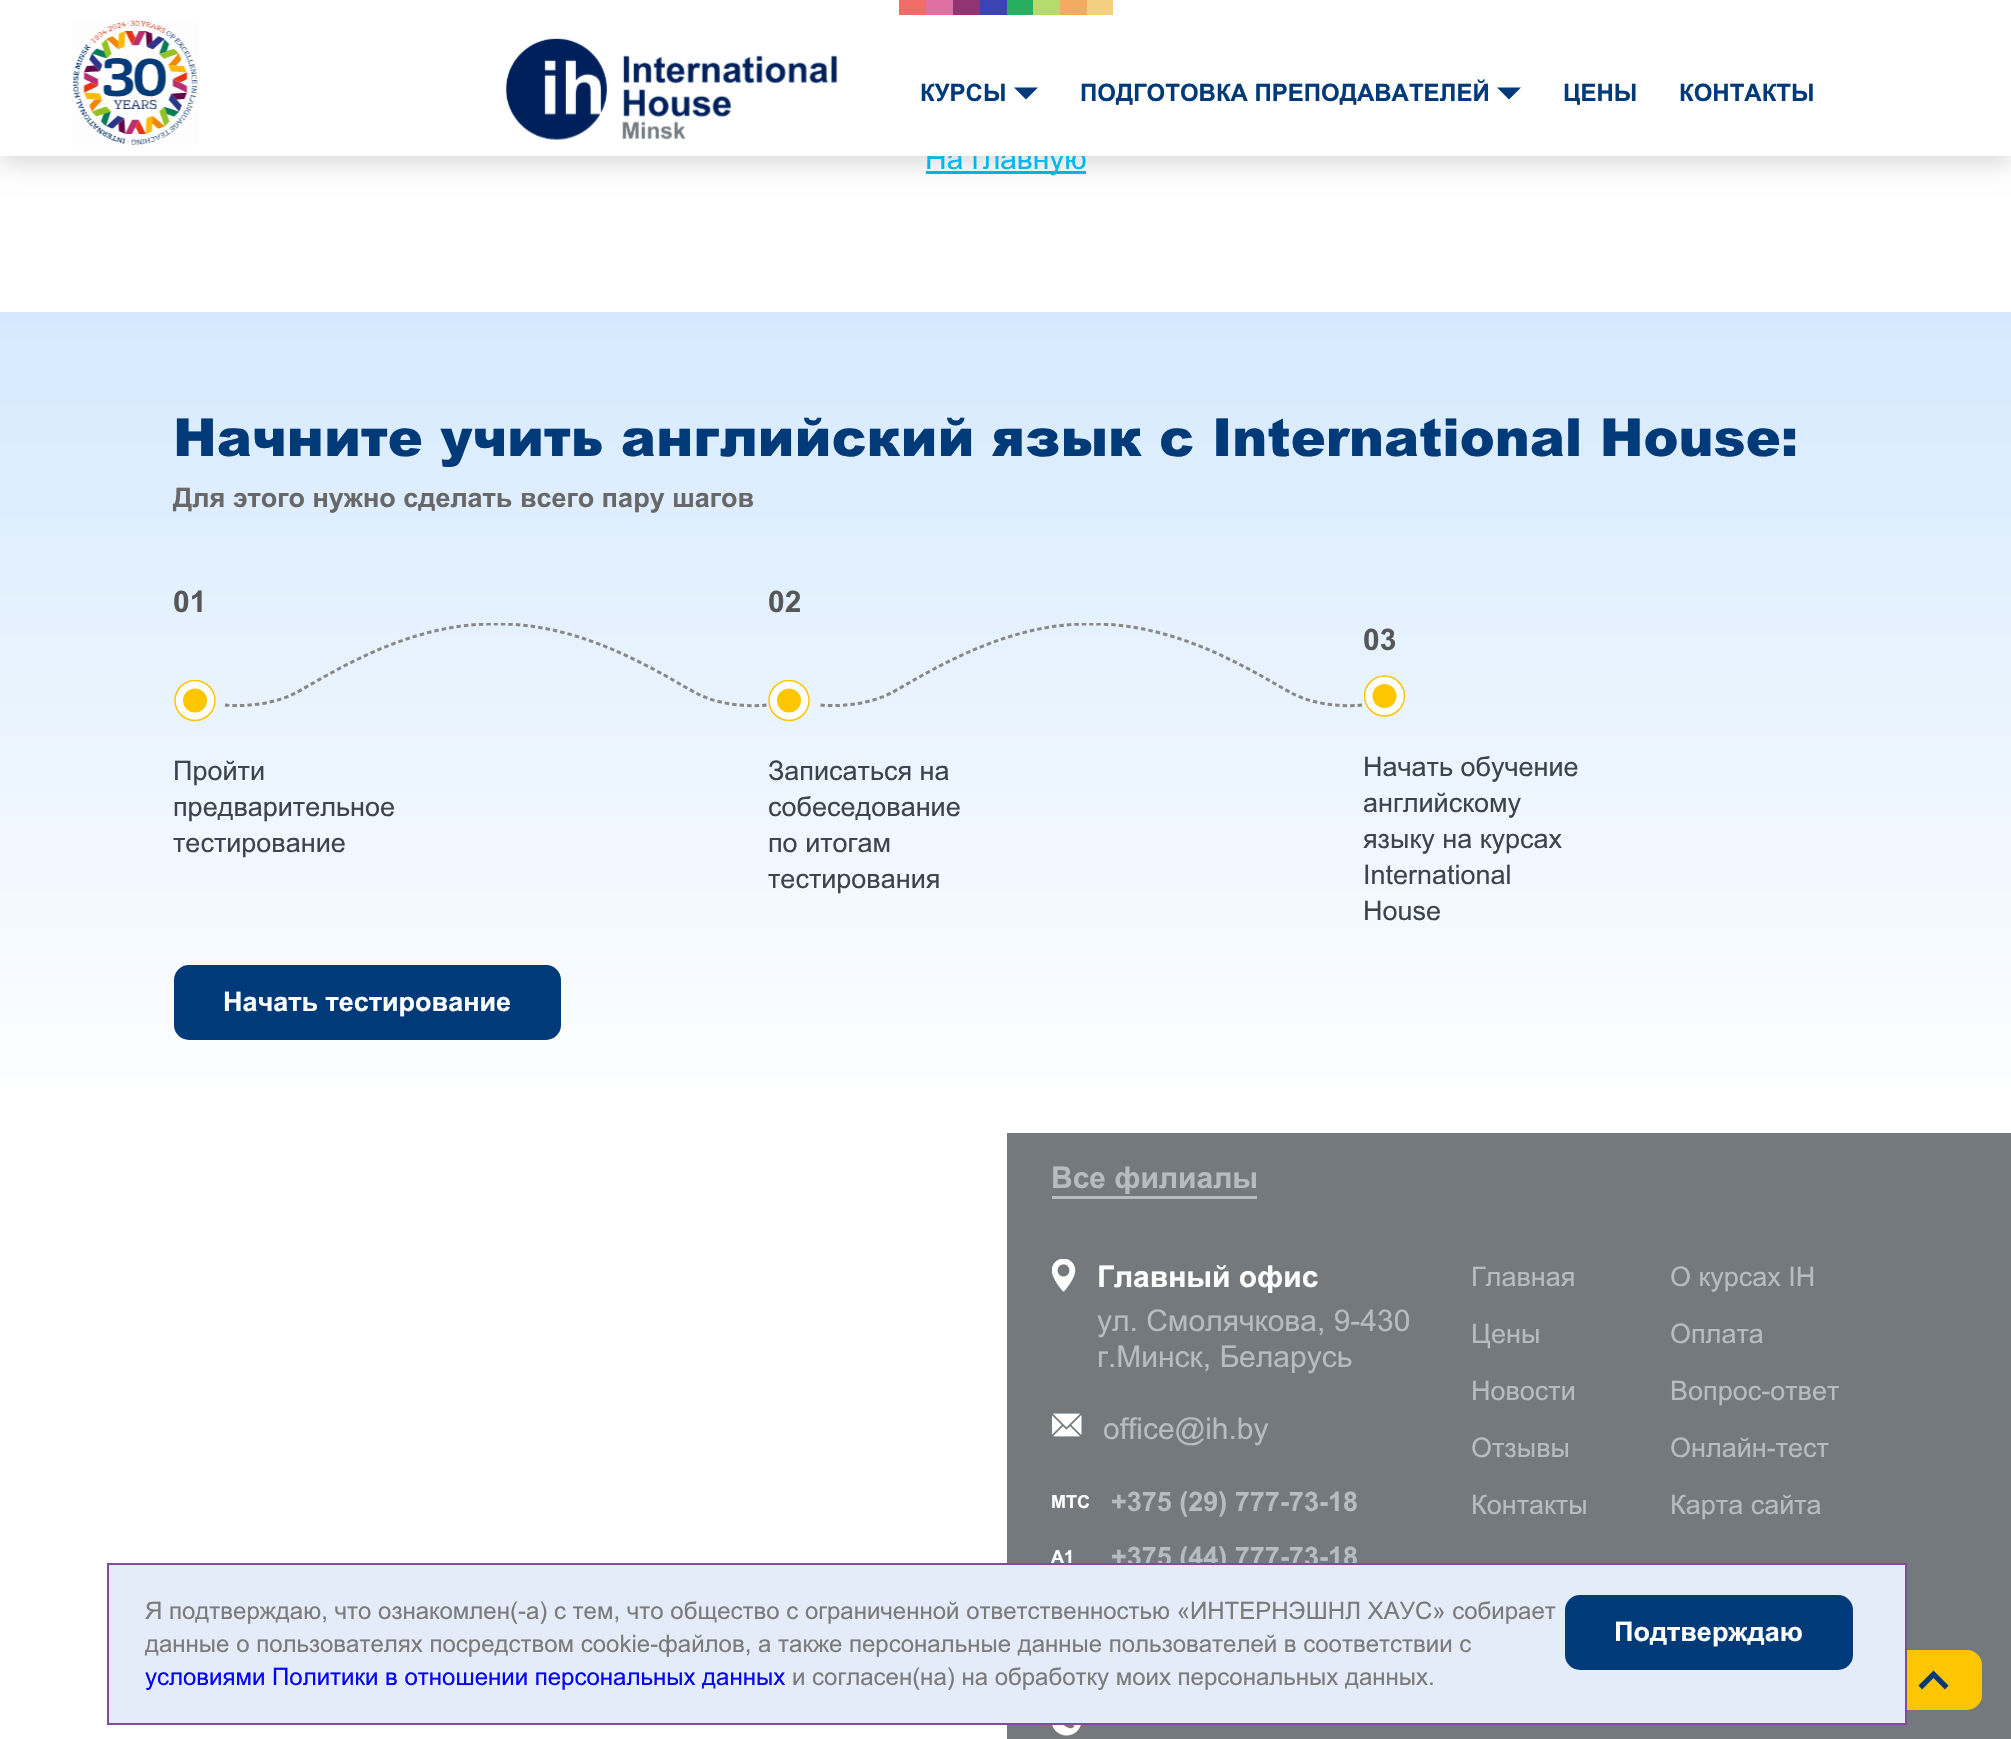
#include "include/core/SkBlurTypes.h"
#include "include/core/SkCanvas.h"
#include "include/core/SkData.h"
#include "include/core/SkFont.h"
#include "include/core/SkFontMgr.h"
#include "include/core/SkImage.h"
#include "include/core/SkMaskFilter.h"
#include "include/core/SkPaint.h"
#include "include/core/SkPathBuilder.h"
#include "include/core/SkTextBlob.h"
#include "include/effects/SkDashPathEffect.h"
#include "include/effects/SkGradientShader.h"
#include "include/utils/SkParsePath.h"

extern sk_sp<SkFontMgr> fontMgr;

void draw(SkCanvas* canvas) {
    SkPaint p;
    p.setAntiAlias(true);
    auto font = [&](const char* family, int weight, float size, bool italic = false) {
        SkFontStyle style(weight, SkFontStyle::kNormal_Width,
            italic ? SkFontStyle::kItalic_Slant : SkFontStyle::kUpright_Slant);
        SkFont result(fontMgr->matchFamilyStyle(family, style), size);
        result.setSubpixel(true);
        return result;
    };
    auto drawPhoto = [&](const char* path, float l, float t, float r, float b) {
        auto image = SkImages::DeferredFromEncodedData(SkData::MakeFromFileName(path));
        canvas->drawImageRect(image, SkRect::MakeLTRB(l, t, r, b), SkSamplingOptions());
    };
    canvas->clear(0xFFFFFFFF);
    p.setColor(0xFF00B7EB);
    canvas->drawRect(SkRect::MakeLTRB(926, 171, 1086, 174), p);
    p.setColor(0x29000000);
    p.setMaskFilter(SkMaskFilter::MakeBlur(kNormal_SkBlurStyle, 12));
    canvas->drawRect(SkRect::MakeLTRB(0, 6, 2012, 162), p);
    p.setMaskFilter(nullptr);
    auto font1 = font("Arial", 400, 30);
    p.setColor(0xFF00B7EB);
    canvas->drawString("На главную", 925, 169, font1, p);
    {
        const struct { float l, t, r, b; SkColor color; } items[] = {
            {0, 0, 2011, 156, 0xFFFFFFFF},
            {899, 0, 926, 15, 0xFFEF6C69},
            {926, 0, 953, 15, 0xFFDF70A1},
            {953, 0, 980, 15, 0xFF913471},
            {980, 0, 1007, 15, 0xFF3B43B5},
            {1007, 0, 1033, 15, 0xFF28AE61},
            {1033, 0, 1060, 15, 0xFFB6DB6D},
            {1060, 0, 1087, 15, 0xFFF3AB62},
            {1087, 0, 1113, 15, 0xFFF3CF7F},
        };
        for (auto [l, t, r, b, color] : items) {
            p.setColor(color);
            canvas->drawRect(SkRect::MakeLTRB(l, t, r, b), p);
        }
    }
    drawPhoto("media/1.png", 72, 20, 198, 145);
    drawPhoto("media/2.png", 505, 38, 838, 141);
    auto font2 = font("Arial", 700, 24);
    p.setColor(0xFF003A78);
    canvas->drawString("КУРСЫ", 920, 101, font2, p);
    canvas->drawPath(SkPathBuilder().moveTo(1038, 87.5f).lineTo(1026, 99.5f).lineTo(1014, 87.5f).close().detach(), p);
    canvas->drawString("ПОДГОТОВКА ПРЕПОДАВАТЕЛЕЙ", 1080, 101, font2, p);
    canvas->drawPath(SkPathBuilder().moveTo(1521, 87.5f).lineTo(1509, 99.5f).lineTo(1497, 87.5f).close().detach(), p);
    canvas->drawString("ЦЕНЫ", 1563, 101, font2, p);
    canvas->drawString("КОНТАКТЫ", 1679, 101, font2, p);
    {
        const SkColor colors[] = {0xFFD5E9FE, 0xFFFFFFFF};
        const float stops[] = {0, 1};
        const SkPoint ends[] = {{1006, 312}, {1006, 1133}};
        p.setShader(SkGradientShader::MakeLinear(ends, colors, stops, 2, SkTileMode::kClamp));
        p.setAlpha(255);
    }
    canvas->drawRect(SkRect::MakeLTRB(0, 312, 2011, 1084), p);
    auto font3 = font("Arial", 900, 52.5f);
    p.setShader(nullptr);
    p.setColor(0xFF003A78);
    canvas->drawString("Начните учить английский язык с International House:", 173, 456, font3, p);
    auto font4 = font("Arial", 700, 27);
    p.setColor(0xFF686868);
    canvas->drawString("Для этого нужно сделать всего пару шагов", 173, 507, font4, p);
    auto font5 = font("Arial", 700, 30);
    p.setColor(0xFF565758);
    canvas->drawString("01", 173, 612, font5, p);
    p.setColor(0xFFFFFFFF);
    canvas->drawCircle(195, 700.5f, 20, p);
    canvas->save();
    canvas->clipRect(SkRect::MakeLTRB(174, 680, 216, 723));
    p.setStyle(SkPaint::kStroke_Style);
    p.setStrokeWidth(1.5f);
    p.setColor(0xFFFDC600);
    canvas->drawCircle(195, 700.5f, 20, p);
    canvas->restore();
    canvas->save();
    canvas->clipRect(SkRect::MakeLTRB(224, 623, 768, 708));
    p.setStrokeWidth(3);
    p.setColor(0xFF888888);
    p.setPathEffect(SkDashPathEffect::Make({{4.5f, 3}}, 0));
    canvas->drawPath(SkPathBuilder().moveTo(225, 705).cubicTo(238, 706.5f, 270.5f, 706, 295.5f, 693).cubicTo(326.5f, 676.5f, 406.5f, 622.5f, 496, 624).detach(), p);
    p.setPathEffect(nullptr);
    p.setPathEffect(SkDashPathEffect::Make({{4.5f, 3}}, 0));
    canvas->drawPath(SkPathBuilder().moveTo(766.5f, 705).cubicTo(753.5f, 706.5f, 721, 706.5f, 696, 693).cubicTo(665, 676.5f, 585, 622.5f, 496, 624).detach(), p);
    p.setPathEffect(nullptr);
    canvas->restore();
    p.setStyle(SkPaint::kFill_Style);
    p.setColor(0xFFFDC600);
    canvas->drawCircle(195, 700.5f, 12, p);
    auto font6 = font("Arial", 400, 27);
    p.setColor(0xFF3C454E);
    {
        const struct { const char* s; float x, y; } items[] = {
            {"Пройти", 173, 780},
            {"предварительное", 173, 816},
            {"тестирование", 173, 852},
        };
        for (auto [s, x, y] : items) {
            canvas->drawString(s, x, y, font6, p);
        }
    }
    p.setColor(0xFF565758);
    canvas->drawString("02", 768, 612, font5, p);
    p.setColor(0xFFFFFFFF);
    canvas->drawCircle(789, 700.5f, 20, p);
    canvas->save();
    canvas->clipRect(SkRect::MakeLTRB(768, 680, 810, 723));
    p.setStyle(SkPaint::kStroke_Style);
    p.setStrokeWidth(1.5f);
    p.setColor(0xFFFDC600);
    canvas->drawCircle(789, 700.5f, 20, p);
    canvas->restore();
    canvas->save();
    canvas->clipRect(SkRect::MakeLTRB(819, 623, 1364, 708));
    p.setStrokeWidth(3);
    p.setColor(0xFF888888);
    p.setPathEffect(SkDashPathEffect::Make({{4.5f, 3}}, 0));
    canvas->drawPath(SkPathBuilder().moveTo(820.5f, 705).cubicTo(833.5f, 706.5f, 866, 706, 891, 693).cubicTo(922, 676.5f, 1002, 622.5f, 1091, 624).detach(), p);
    p.setPathEffect(nullptr);
    p.setPathEffect(SkDashPathEffect::Make({{4.5f, 3}}, 0));
    canvas->drawPath(SkPathBuilder().moveTo(1362, 705).cubicTo(1349, 706.5f, 1316.5f, 706.5f, 1291.5f, 693).cubicTo(1260.5f, 676.5f, 1180.5f, 622.5f, 1091, 624).detach(), p);
    p.setPathEffect(nullptr);
    canvas->restore();
    p.setStyle(SkPaint::kFill_Style);
    p.setColor(0xFFFDC600);
    canvas->drawCircle(789, 700.5f, 12, p);
    p.setColor(0xFF3C454E);
    {
        const struct { const char* s; float x, y; } items[] = {
            {"Записаться на", 768, 780},
            {"собеседование", 768, 816},
            {"по итогам", 768, 852},
            {"тестирования", 768, 888},
        };
        for (auto [s, x, y] : items) {
            canvas->drawString(s, x, y, font6, p);
        }
    }
    p.setColor(0xFF565758);
    canvas->drawString("03", 1363, 650, font5, p);
    p.setColor(0xFFFFFFFF);
    canvas->drawCircle(1384.5f, 696, 20, p);
    canvas->save();
    canvas->clipRect(SkRect::MakeLTRB(1364, 675, 1406, 719));
    p.setStyle(SkPaint::kStroke_Style);
    p.setStrokeWidth(1.5f);
    p.setColor(0xFFFDC600);
    canvas->drawCircle(1384.5f, 696, 20, p);
    canvas->restore();
    p.setStyle(SkPaint::kFill_Style);
    canvas->drawCircle(1384.5f, 696, 12, p);
    p.setColor(0xFF3C454E);
    {
        const struct { const char* s; float x, y; } items[] = {
            {"Начать обучение", 1363, 776},
            {"английскому", 1363, 812},
            {"языку на курсах", 1363, 848},
            {"International", 1363, 884},
            {"House", 1363, 920},
        };
        for (auto [s, x, y] : items) {
            canvas->drawString(s, x, y, font6, p);
        }
    }
    p.setColor(0xFF003A78);
    canvas->drawRoundRect(SkRect::MakeLTRB(174, 965, 561, 1040), 15, 15, p);
    p.setColor(0xFFFFFFFF);
    canvas->drawString("Начать тестирование", 223, 1011, font4, p);
    p.setColor(0xFF73797C);
    canvas->drawRect(SkRect::MakeLTRB(1007, 1133, 2011, 1739), p);
    p.setColor(0xFFB9BCBE);
    canvas->drawRect(SkRect::MakeLTRB(1052, 1196, 1257, 1199), p);
    canvas->drawString("Все филиалы", 1051, 1188, font5, p);
    drawPhoto("media/3.png", 1052, 1259, 1076, 1292);
    p.setColor(0xFFFFFFFF);
    canvas->drawString("Главный офис", 1097, 1287, font5, p);
    p.setColor(0xFFB9BCBE);
    canvas->drawString("ул. Смолячкова, 9-430", 1097, 1331, font1, p);
    canvas->drawString("г.Минск, Беларусь", 1097, 1367, font1, p);
    drawPhoto("media/4.png", 1052, 1413, 1082, 1437);
    canvas->drawString("office@ih.by", 1103, 1439, font1, p);
    auto font7 = font("Arial", 700, 18);
    p.setColor(0xFFFFFFFF);
    canvas->drawString("МТС", 1051, 1508, font7, p);
    p.setColor(0xFFB9BCBE);
    canvas->drawString("+375 (29) 777-73-18", 1111, 1511, font4, p);
    p.setColor(0xFFFFFFFF);
    canvas->drawString("A1", 1051, 1563, font7, p);
    p.setColor(0xFFB9BCBE);
    canvas->drawString("+375 (44) 777-73-18", 1111, 1566, font4, p);
    drawPhoto("media/5.png", 1052, 1725, 1081, 1736);
    {
        const struct { const char* s; float x, y; } items[] = {
            {"Главная", 1471, 1286},
            {"О курсах IH", 1670, 1286},
            {"Цены", 1471, 1343},
            {"Оплата", 1670, 1343},
            {"Новости", 1471, 1400},
            {"Вопрос-ответ", 1670, 1400},
            {"Отзывы", 1471, 1457},
            {"Онлайн-тест", 1670, 1457},
            {"Контакты", 1471, 1514},
            {"Карта сайта", 1670, 1514},
        };
        for (auto [s, x, y] : items) {
            canvas->drawString(s, x, y, font6, p);
        }
    }
    p.setColor(0xFFFDC600);
    canvas->drawRoundRect(SkRect::MakeLTRB(1886, 1650, 1982, 1710), 15, 15, p);
    p.setColor(0xFF003A78);
    canvas->drawPath(SkPathBuilder().moveTo(1933.5f, 1670.5f).lineTo(1918.5f, 1685.5f).lineTo(1922, 1689.5f).lineTo(1933.5f, 1678).lineTo(1945, 1689.5f).lineTo(1948.5f, 1685.5f).close().detach(), p);
    p.setColor(0xFFE4EBF9);
    canvas->drawRect(SkRect::MakeLTRB(108, 1564, 1906, 1724), p);
    p.setStyle(SkPaint::kStroke_Style);
    p.setStrokeWidth(2);
    p.setColor(0xFF834B9B);
    canvas->drawRect(SkRect::MakeLTRB(108, 1564, 1906, 1724), p);
    auto font8 = font("Arial", 400, 24);
    p.setStyle(SkPaint::kFill_Style);
    p.setColor(0xFF7B7B7B);
    canvas->drawString("Я подтверждаю, что ознакомлен(-а) с тем, что общество с ограниченной ответственностью «ИНТЕРНЭШНЛ ХАУС» собирает", 145, 1619, font8, p);
    canvas->drawString("данные о пользователях посредством cookie-файлов, а также персональные данные пользователей в соответствии с", 145, 1652, font8, p);
    p.setColor(0xFF0000FF);
    canvas->drawString("условиями Политики в отношении персональных данных", 145, 1685, font8, p);
    p.setColor(0xFF7B7B7B);
    canvas->drawString("и согласен(на) на обработку моих персональных данных.", 792, 1685, font8, p);
    p.setColor(0xFF003A78);
    canvas->drawRoundRect(SkRect::MakeLTRB(1565, 1595, 1853, 1670), 15, 15, p);
    p.setColor(0xFFFFFFFF);
    canvas->drawString("Подтверждаю", 1614, 1641, font4, p);
}
